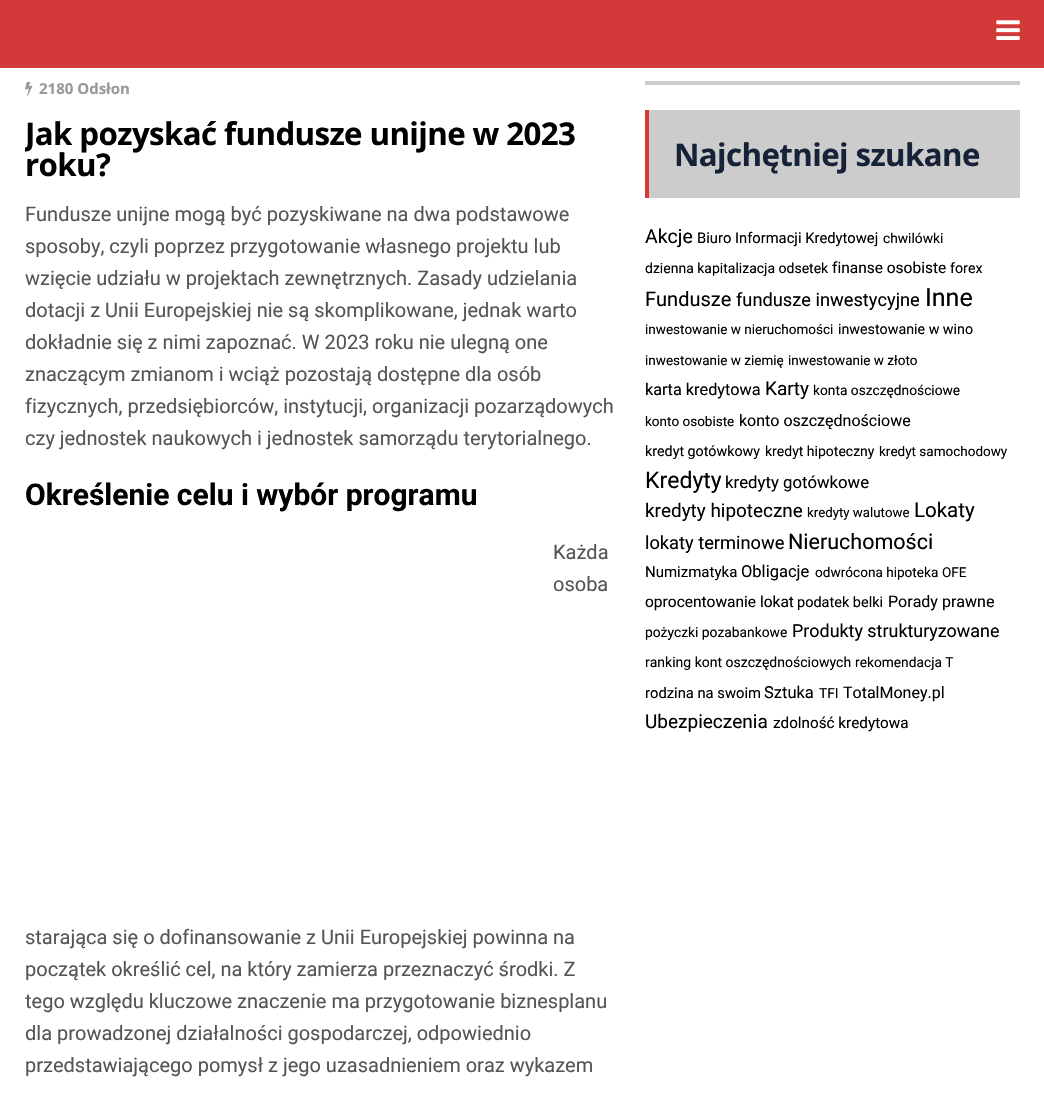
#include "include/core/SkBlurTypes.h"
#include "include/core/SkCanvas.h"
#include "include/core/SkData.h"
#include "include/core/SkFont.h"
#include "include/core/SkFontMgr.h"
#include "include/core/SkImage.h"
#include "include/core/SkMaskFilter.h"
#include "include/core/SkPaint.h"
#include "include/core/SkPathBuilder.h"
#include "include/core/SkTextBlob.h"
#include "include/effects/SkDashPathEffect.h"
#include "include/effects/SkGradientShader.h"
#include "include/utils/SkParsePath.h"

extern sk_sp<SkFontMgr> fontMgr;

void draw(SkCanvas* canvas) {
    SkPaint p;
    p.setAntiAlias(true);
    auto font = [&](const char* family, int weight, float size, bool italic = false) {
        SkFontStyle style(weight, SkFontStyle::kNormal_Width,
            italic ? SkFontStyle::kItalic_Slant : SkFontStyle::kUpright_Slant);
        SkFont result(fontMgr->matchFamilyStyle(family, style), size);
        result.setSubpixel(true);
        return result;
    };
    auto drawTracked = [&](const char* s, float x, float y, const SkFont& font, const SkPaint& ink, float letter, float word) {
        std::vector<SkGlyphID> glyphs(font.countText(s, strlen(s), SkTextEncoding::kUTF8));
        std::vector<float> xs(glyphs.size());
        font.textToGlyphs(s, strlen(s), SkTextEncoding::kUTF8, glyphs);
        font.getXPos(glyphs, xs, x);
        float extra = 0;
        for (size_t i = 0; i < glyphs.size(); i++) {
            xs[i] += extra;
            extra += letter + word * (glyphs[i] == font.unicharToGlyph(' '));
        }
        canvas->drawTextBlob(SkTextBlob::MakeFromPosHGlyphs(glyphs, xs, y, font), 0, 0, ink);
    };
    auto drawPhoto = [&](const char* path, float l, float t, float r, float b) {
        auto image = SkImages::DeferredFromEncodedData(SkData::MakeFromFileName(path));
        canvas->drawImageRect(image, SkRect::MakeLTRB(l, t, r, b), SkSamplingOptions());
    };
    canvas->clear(0xFFFFFFFF);
    p.setColor(0xFFD43939);
    canvas->drawRect(SkRect::MakeLTRB(0, 0, 1044, 68), p);
    drawPhoto("media/1.png", 996, 20, 1020, 40);
    drawPhoto("media/2.png", 25, 81, 33, 96);
    auto font1 = font("Open Sans", 700, 15);
    p.setColor(0xFF999999);
    canvas->drawString("2180 Odsłon", 39, 94, font1, p);
    canvas->save();
    canvas->clipRect(SkRect::MakeLTRB(25, 25, 620, 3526));
    auto font2 = font("Open Sans", 700, 31.25f);
    p.setColor(0xFF000000);
    drawTracked("Jak pozyskać fundusze unijne w 2023", 25, 145, font2, p, -0.6f, 0);
    canvas->restore();
    drawTracked("roku?", 25, 176, font2, p, -0.6f, 0);
    auto font3 = font("Roboto", 400, 20);
    p.setColor(0xFF555555);
    {
        const struct { const char* s; float x, y; } items[] = {
            {"Fundusze unijne mogą być pozyskiwane na dwa podstawowe", 25, 221},
            {"sposoby, czyli poprzez przygotowanie własnego projektu lub", 25, 253},
            {"wzięcie udziału w projektach zewnętrznych. Zasady udzielania", 25, 285},
            {"dotacji z Unii Europejskiej nie są skomplikowane, jednak warto", 25, 317},
            {"dokładnie się z nimi zapoznać. W 2023 roku nie ulegną one", 25, 349},
            {"znaczącym zmianom i wciąż pozostają dostępne dla osób", 25, 381},
            {"fizycznych, przedsiębiorców, instytucji, organizacji pozarządowych", 25, 413},
            {"czy jednostek naukowych i jednostek samorządu terytorialnego.", 25, 445},
        };
        for (auto [s, x, y] : items) {
            canvas->drawString(s, x, y, font3, p);
        }
    }
    auto font4 = font("Roboto", 700, 30);
    p.setColor(0xFF000000);
    canvas->drawString("Określenie celu i wybór programu", 25, 505, font4, p);
    p.setColor(0xFF555555);
    {
        const struct { const char* s; float x, y; } items[] = {
            {"Każda", 553, 559},
            {"osoba", 553, 591},
            {"starająca się o dofinansowanie z Unii Europejskiej powinna na", 25, 944},
            {"początek określić cel, na który zamierza przeznaczyć środki. Z", 25, 976},
            {"tego względu kluczowe znaczenie ma przygotowanie biznesplanu", 25, 1008},
            {"dla prowadzonej działalności gospodarczej, odpowiednio", 25, 1040},
            {"przedstawiającego pomysł z jego uzasadnieniem oraz wykazem", 25, 1072},
        };
        for (auto [s, x, y] : items) {
            canvas->drawString(s, x, y, font3, p);
        }
    }
    {
        const struct { float l, t, r, b; SkColor color; } items[] = {
            {645, 81, 1020, 85, 0xFFCCCCCC},
            {649, 110, 1020, 198, 0xFFCCCCCC},
            {645, 110, 649, 198, 0xFFD43939},
        };
        for (auto [l, t, r, b, color] : items) {
            p.setColor(color);
            canvas->drawRect(SkRect::MakeLTRB(l, t, r, b), p);
        }
    }
    p.setColor(0xFF162238);
    drawTracked("Najchętniej szukane", 674, 166, font2, p, -0.6f, 0);
    auto font5 = font("Roboto", 400, 19.5f);
    p.setColor(0xFF000000);
    canvas->drawString("Akcje", 645, 243, font5, p);
    auto font6 = font("Roboto", 400, 14.75f);
    canvas->drawString("Biuro Informacji Kredytowej", 697, 243, font6, p);
    auto font7 = font("Roboto", 400, 13.75f);
    canvas->drawString("chwilówki", 883, 243, font7, p);
    auto font8 = font("Roboto", 400, 14);
    canvas->drawString("dzienna kapitalizacja odsetek", 645, 273, font8, p);
    auto font9 = font("Roboto", 400, 15.5f);
    canvas->drawString("finanse osobiste", 832, 273, font9, p);
    auto font10 = font("Roboto", 400, 14.25f);
    canvas->drawString("forex", 950, 273, font10, p);
    canvas->drawString("Fundusze", 645, 306, font3, p);
    auto font11 = font("Roboto", 400, 18.25f);
    canvas->drawString("fundusze inwestycyjne", 736, 306, font11, p);
    auto font12 = font("Roboto", 400, 25);
    canvas->drawString("Inne", 925, 306, font12, p);
    auto font13 = font("Roboto", 400, 13.5f);
    canvas->drawString("inwestowanie w nieruchomości", 645, 334, font13, p);
    canvas->drawString("inwestowanie w wino", 838, 334, font10, p);
    canvas->drawString("inwestowanie w ziemię", 645, 365, font13, p);
    canvas->drawString("inwestowanie w złoto", 788, 365, font13, p);
    auto font14 = font("Roboto", 400, 16.25f);
    canvas->drawString("karta kredytowa", 645, 395, font14, p);
    auto font15 = font("Roboto", 400, 19);
    canvas->drawString("Karty", 765, 395, font15, p);
    canvas->drawString("konta oszczędnościowe", 813, 395, font7, p);
    canvas->drawString("konto osobiste", 645, 426, font13, p);
    auto font16 = font("Roboto", 400, 16);
    canvas->drawString("konto oszczędnościowe", 739, 426, font16, p);
    canvas->drawString("kredyt gotówkowy", 645, 456, font10, p);
    canvas->drawString("kredyt hipoteczny", 765, 456, font8, p);
    canvas->drawString("kredyt samochodowy", 879, 456, font13, p);
    auto font17 = font("Roboto", 400, 23);
    canvas->drawString("Kredyty", 645, 488, font17, p);
    auto font18 = font("Roboto", 400, 16.75f);
    canvas->drawString("kredyty gotówkowe", 725, 488, font18, p);
    auto font19 = font("Roboto", 400, 18.9f);
    canvas->drawString("kredyty hipoteczne", 645, 517, font19, p);
    auto font20 = font("Roboto", 400, 13.25f);
    canvas->drawString("kredyty walutowe", 807, 517, font20, p);
    auto font21 = font("Roboto", 400, 20.5f);
    canvas->drawString("Lokaty", 914, 517, font21, p);
    canvas->drawString("lokaty terminowe", 645, 549, font11, p);
    auto font22 = font("Roboto", 400, 21.5f);
    canvas->drawString("Nieruchomości", 788, 549, font22, p);
    auto font23 = font("Roboto", 400, 15);
    canvas->drawString("Numizmatyka", 645, 577, font23, p);
    auto font24 = font("Roboto", 400, 16.5f);
    canvas->drawString("Obligacje", 741, 577, font24, p);
    auto font25 = font("Roboto", 400, 13.6f);
    canvas->drawString("odwrócona hipoteka", 815, 577, font25, p);
    canvas->drawString("OFE", 942, 577, font25, p);
    canvas->drawString("oprocentowanie lokat", 645, 607, font9, p);
    auto font26 = font("Roboto", 400, 14.5f);
    canvas->drawString("podatek belki", 797, 607, font26, p);
    canvas->drawString("Porady prawne", 888, 607, font16, p);
    auto font27 = font("Roboto", 400, 13.8f);
    canvas->drawString("pożyczki pozabankowe", 645, 637, font27, p);
    auto font28 = font("Roboto", 400, 17.9f);
    canvas->drawString("Produkty strukturyzowane", 792, 637, font28, p);
    canvas->drawString("ranking kont oszczędnościowych", 645, 667, font8, p);
    canvas->drawString("rekomendacja T", 855, 667, font7, p);
    canvas->drawString("rodzina na swoim", 645, 698, font6, p);
    canvas->drawString("Sztuka", 764, 698, font24, p);
    canvas->drawString("TFI", 819, 698, font27, p);
    canvas->drawString("TotalMoney.pl", 843, 698, font16, p);
    canvas->drawString("Ubezpieczenia", 645, 728, font15, p);
    auto font29 = font("Roboto", 400, 15.25f);
    canvas->drawString("zdolność kredytowa", 773, 728, font29, p);
}
